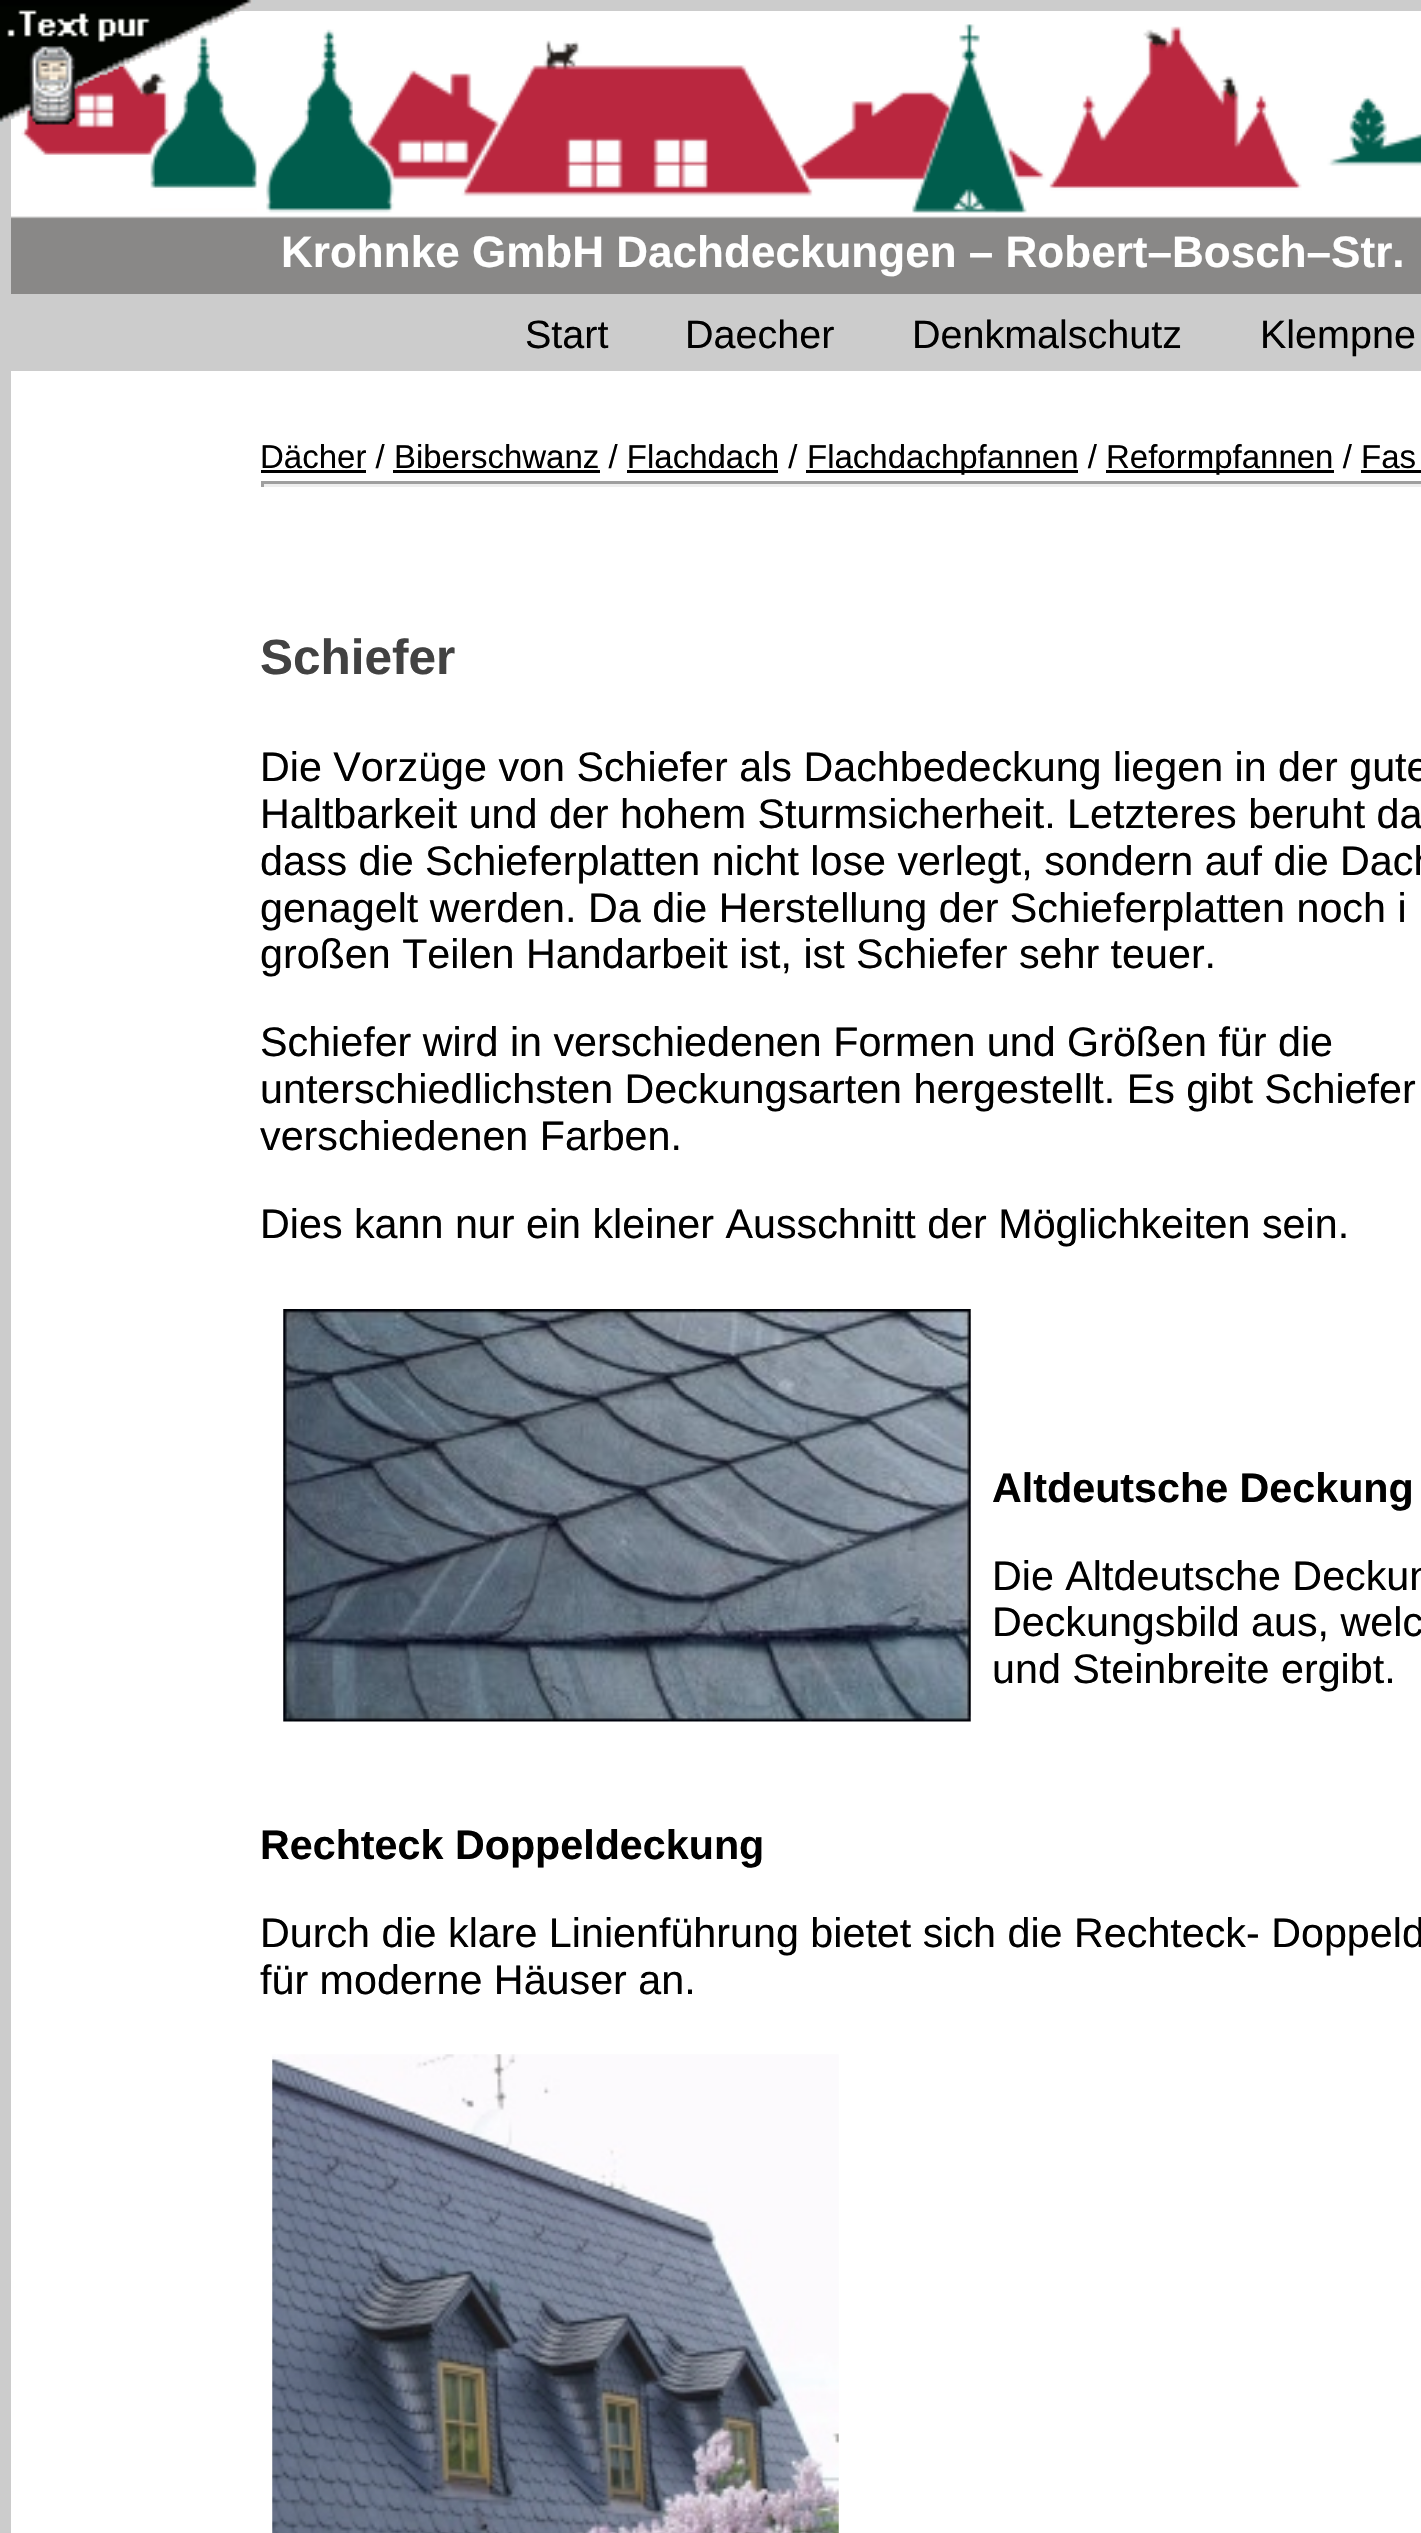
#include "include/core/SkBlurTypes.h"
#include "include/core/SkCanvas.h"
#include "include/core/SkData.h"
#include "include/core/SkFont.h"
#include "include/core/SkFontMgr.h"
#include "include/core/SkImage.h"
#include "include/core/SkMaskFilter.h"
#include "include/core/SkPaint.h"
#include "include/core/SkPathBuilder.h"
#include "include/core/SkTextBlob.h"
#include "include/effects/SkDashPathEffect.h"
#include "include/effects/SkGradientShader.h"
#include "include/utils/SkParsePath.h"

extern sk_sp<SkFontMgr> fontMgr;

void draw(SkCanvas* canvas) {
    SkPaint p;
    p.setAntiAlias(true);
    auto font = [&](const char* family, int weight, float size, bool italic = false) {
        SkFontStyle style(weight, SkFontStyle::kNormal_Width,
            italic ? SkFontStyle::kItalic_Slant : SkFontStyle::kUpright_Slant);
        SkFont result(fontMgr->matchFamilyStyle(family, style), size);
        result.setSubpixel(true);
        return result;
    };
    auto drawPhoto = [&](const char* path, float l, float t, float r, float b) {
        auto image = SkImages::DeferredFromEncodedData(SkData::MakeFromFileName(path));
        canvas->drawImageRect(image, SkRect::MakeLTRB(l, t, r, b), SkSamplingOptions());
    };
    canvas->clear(0xFFCCCCCC);
    p.setColor(0xFFFFFFFF);
    canvas->drawRect(SkRect::MakeLTRB(11, 11, 1421, 2533), p);
    drawPhoto("media/2.png", 11, 24, 1421, 294);
    drawPhoto("media/3.png", 0, 0, 255, 125);
    drawPhoto("media/1.png", 2, 2, 251, 125);
    auto font1 = font("Liberation Sans", 700, 44.05f);
    canvas->drawString("Krohnke GmbH Dachdeckungen – Robert–Bosch–Str.", 281, 267, font1, p);
    p.setColor(0xFFCCCCCC);
    canvas->drawRect(SkRect::MakeLTRB(11, 294, 1421, 371), p);
    auto font2 = font("Liberation Sans", 400, 39.5f);
    p.setColor(0xFF000000);
    {
        const struct { const char* s; float x, y; } items[] = {
            {"Start", 525, 348},
            {"Daecher", 685, 348},
            {"Denkmalschutz", 912, 348},
            {"Klempne", 1260, 348},
        };
        for (auto [s, x, y] : items) {
            canvas->drawString(s, x, y, font2, p);
        }
    }
    auto font3 = font("Liberation Sans", 400, 33);
    canvas->drawString("Dächer / Biberschwanz / Flachdach /", 260, 468, font3, p);
    canvas->drawRect(SkRect::MakeLTRB(261, 470, 366, 473), p);
    canvas->drawRect(SkRect::MakeLTRB(806, 470, 1078, 473), p);
    canvas->drawString("Flachdachpfannen /", 807, 468, font3, p);
    canvas->drawRect(SkRect::MakeLTRB(1106, 470, 1334, 473), p);
    canvas->drawString("Reformpfannen / Fas", 1106, 468, font3, p);
    {
        const struct { float l, t, r, b; SkColor color; } items[] = {
            {393, 470, 600, 473, 0xFF000000},
            {627, 470, 778, 473, 0xFF000000},
            {1361, 470, 1421, 473, 0xFF000000},
            {261, 481, 1421, 484, 0xFF9F9F9F},
            {261, 484, 1421, 487, 0xFFEEEEEE},
            {261, 481, 264, 487, 0xFF9F9F9F},
        };
        for (auto [l, t, r, b, color] : items) {
            p.setColor(color);
            canvas->drawRect(SkRect::MakeLTRB(l, t, r, b), p);
        }
    }
    auto font4 = font("Liberation Sans", 700, 49.5f);
    p.setColor(0xFF424242);
    canvas->drawString("Schiefer", 260, 674, font4, p);
    auto font5 = font("Liberation Sans", 400, 41.25f);
    p.setColor(0xFF000000);
    {
        const struct { const char* s; float x, y; } items[] = {
            {"Die Vorzüge von Schiefer als Dachbedeckung liegen in der gute", 260, 781},
            {"Haltbarkeit und der hohem Sturmsicherheit. Letzteres beruht da", 260, 828},
            {"dass die Schieferplatten nicht lose verlegt, sondern auf die Dach", 260, 875},
            {"genagelt werden. Da die Herstellung der Schieferplatten noch i", 260, 922},
            {"großen Teilen Handarbeit ist, ist Schiefer sehr teuer.", 260, 968},
            {"Schiefer wird in verschiedenen Formen und Größen für die", 260, 1056},
            {"unterschiedlichsten Deckungsarten hergestellt. Es gibt Schiefer", 260, 1103},
            {"verschiedenen Farben.", 260, 1150},
            {"Dies kann nur ein kleiner Ausschnitt der Möglichkeiten sein.", 260, 1238},
        };
        for (auto [s, x, y] : items) {
            canvas->drawString(s, x, y, font5, p);
        }
    }
    drawPhoto("media/4.png", 283, 1309, 971, 1722);
    auto font6 = font("Liberation Sans", 700, 41.25f);
    canvas->drawString("Altdeutsche Deckung", 992, 1502, font6, p);
    {
        const struct { const char* s; float x, y; } items[] = {
            {"Die Altdeutsche Deckun", 992, 1590},
            {"Deckungsbild aus, welc", 992, 1636},
            {"und Steinbreite ergibt.", 992, 1683},
        };
        for (auto [s, x, y] : items) {
            canvas->drawString(s, x, y, font5, p);
        }
    }
    canvas->drawString("Rechteck Doppeldeckung", 260, 1859, font6, p);
    canvas->drawString("Durch die klare Linienführung bietet sich die Rechteck- Doppeld", 260, 1947, font5, p);
    canvas->drawString("für moderne Häuser an.", 260, 1994, font5, p);
    drawPhoto("media/5.png", 272, 2054, 839, 2533);
}
